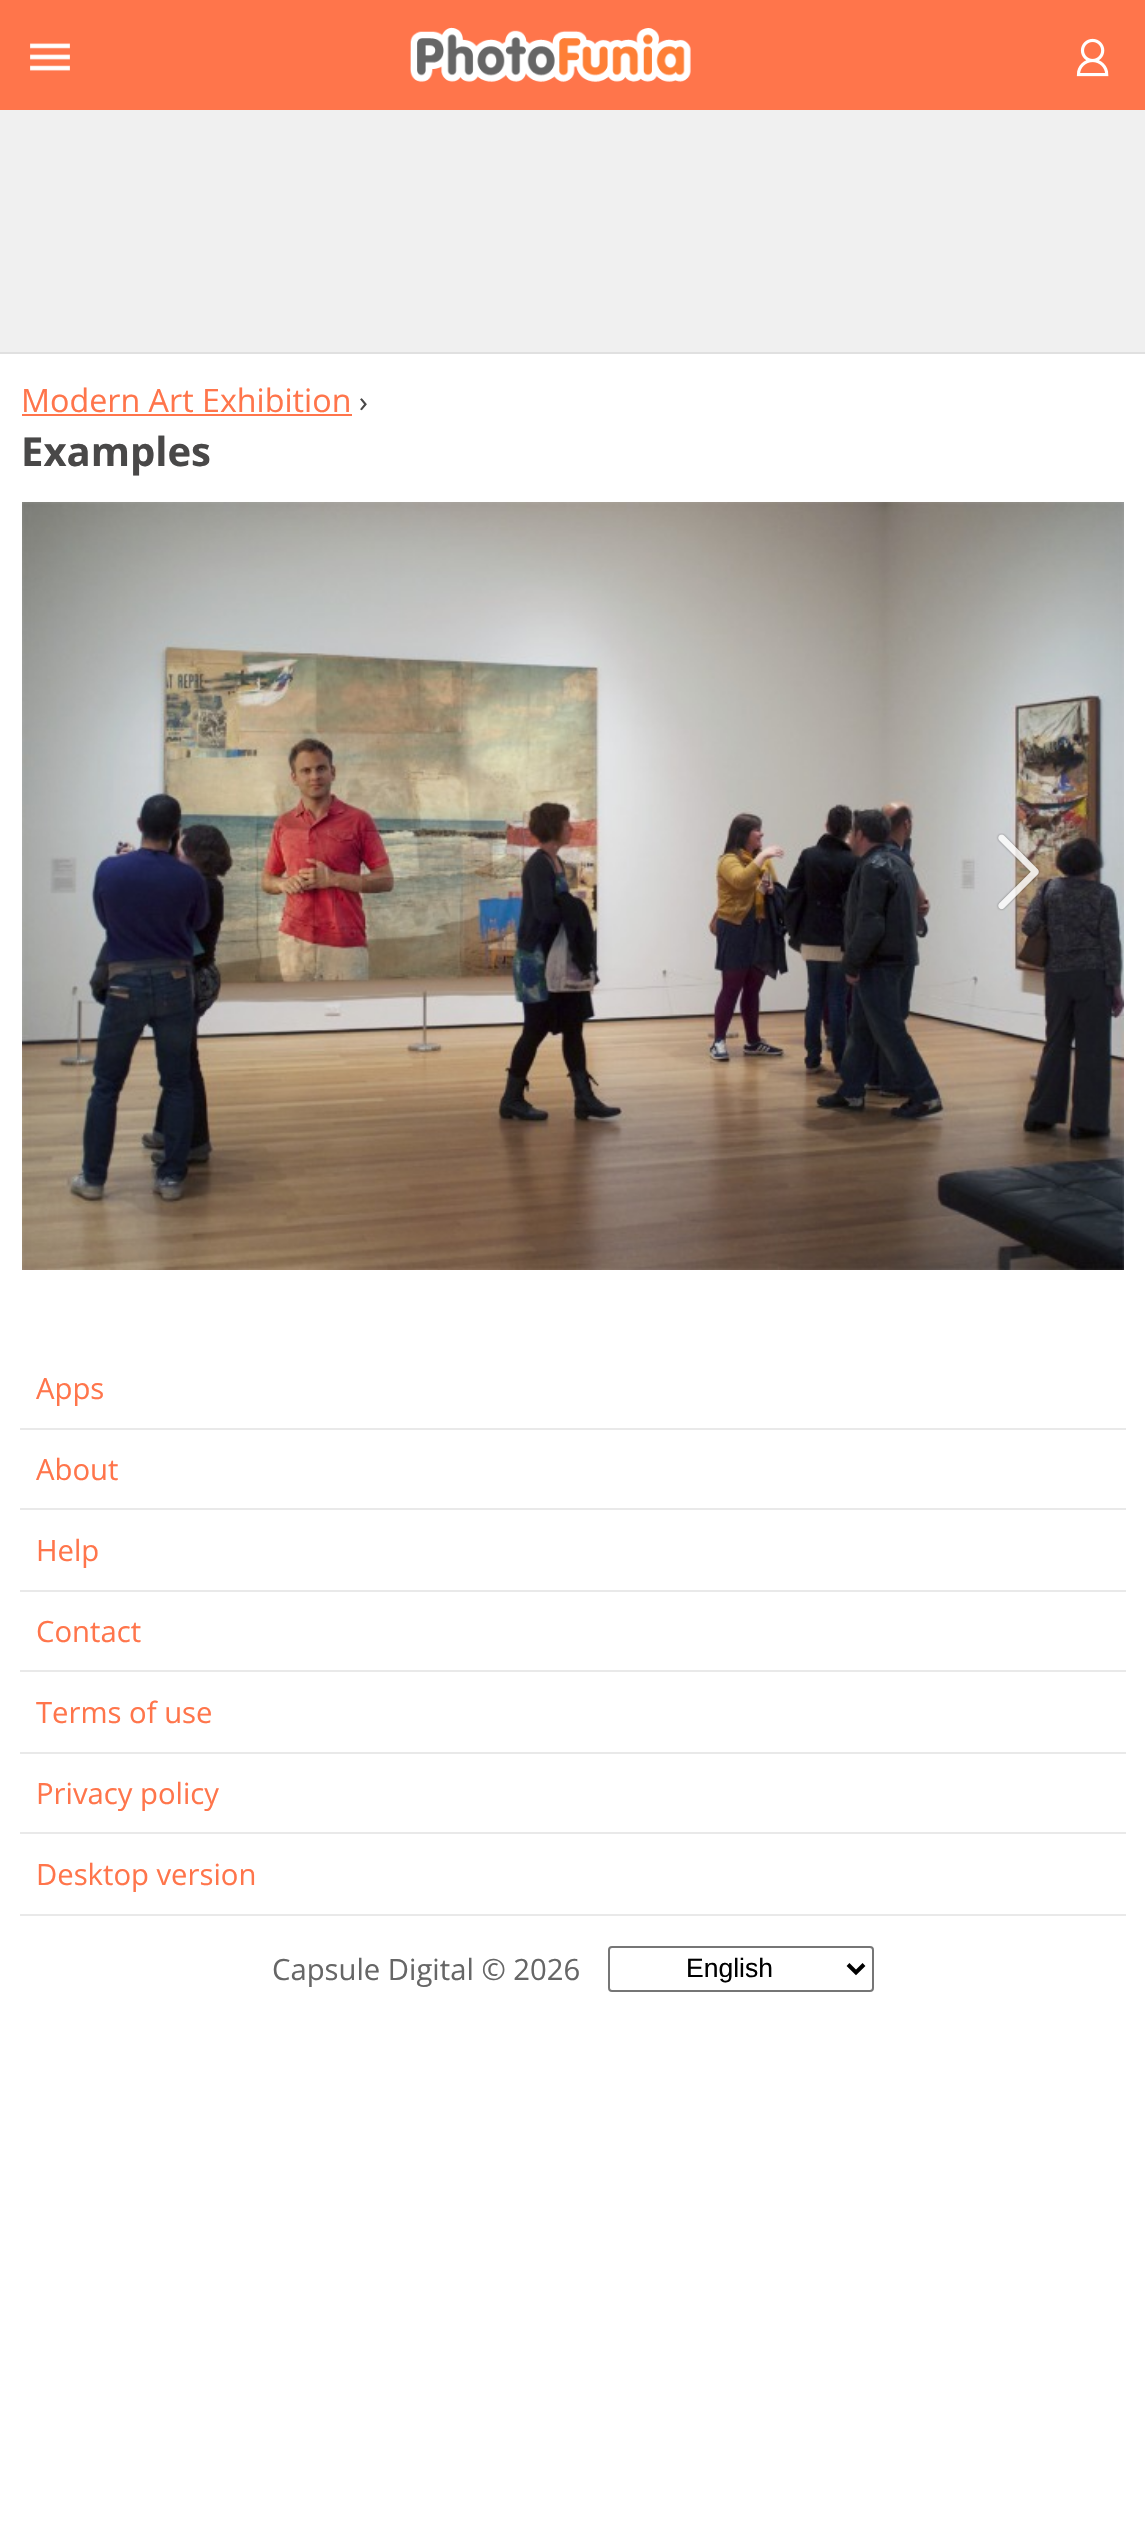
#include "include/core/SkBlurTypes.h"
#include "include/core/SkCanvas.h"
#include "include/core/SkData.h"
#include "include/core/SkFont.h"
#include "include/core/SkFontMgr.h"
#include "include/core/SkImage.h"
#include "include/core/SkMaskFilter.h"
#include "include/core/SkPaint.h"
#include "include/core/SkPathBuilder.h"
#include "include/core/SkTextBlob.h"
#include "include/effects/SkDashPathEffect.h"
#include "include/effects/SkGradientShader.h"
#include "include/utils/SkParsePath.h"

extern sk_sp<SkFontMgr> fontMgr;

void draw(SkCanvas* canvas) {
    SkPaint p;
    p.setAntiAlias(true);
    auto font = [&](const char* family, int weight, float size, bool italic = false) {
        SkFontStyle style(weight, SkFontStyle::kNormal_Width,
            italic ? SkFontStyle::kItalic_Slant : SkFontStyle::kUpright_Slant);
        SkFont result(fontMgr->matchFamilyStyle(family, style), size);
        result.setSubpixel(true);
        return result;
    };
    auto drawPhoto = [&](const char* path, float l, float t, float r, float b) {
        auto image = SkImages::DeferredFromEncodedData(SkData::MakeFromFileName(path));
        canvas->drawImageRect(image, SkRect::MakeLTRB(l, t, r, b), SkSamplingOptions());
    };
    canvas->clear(0xFFFFFFFF);
    p.setColor(0xFFFF754B);
    canvas->drawRect(SkRect::MakeLTRB(0, 0, 1145, 110), p);
    drawPhoto("media/1.png", 30, 43, 70, 71);
    drawPhoto("media/2.png", 410, 27, 691, 82);
    drawPhoto("media/3.png", 1076, 38, 1109, 77);
    p.setColor(0xFFF0F0F0);
    canvas->drawRect(SkRect::MakeLTRB(0, 110, 1145, 352), p);
    p.setColor(0xFFE0E0E0);
    canvas->drawRect(SkRect::MakeLTRB(0, 352, 1145, 354), p);
    auto font1 = font("Open Sans", 400, 32.25f);
    p.setColor(0xFFFF754B);
    canvas->drawString("Modern Art Exhibition", 21, 412, font1, p);
    canvas->drawRect(SkRect::MakeLTRB(22, 414, 352, 416), p);
    auto font2 = font("Open Sans", 400, 29.25f);
    p.setColor(0xFF494848);
    canvas->drawString("›", 359, 412, font2, p);
    auto font3 = font("Open Sans", 700, 40);
    canvas->drawString("Examples", 21, 466, font3, p);
    drawPhoto("media/4.png", 22, 502, 1124, 1270);
    drawPhoto("media/5.png", 996, 833, 1041, 911);
    p.setColor(0xFFE9E9E9);
    canvas->drawRect(SkRect::MakeLTRB(20, 1428, 1126, 1430), p);
    p.setColor(0xFFFF754B);
    canvas->drawString("Apps", 36, 1399, font2, p);
    p.setColor(0xFFE9E9E9);
    canvas->drawRect(SkRect::MakeLTRB(20, 1508, 1126, 1510), p);
    p.setColor(0xFFFF754B);
    canvas->drawString("About", 36, 1480, font2, p);
    p.setColor(0xFFE9E9E9);
    canvas->drawRect(SkRect::MakeLTRB(20, 1590, 1126, 1592), p);
    p.setColor(0xFFFF754B);
    canvas->drawString("Help", 36, 1561, font2, p);
    p.setColor(0xFFE9E9E9);
    canvas->drawRect(SkRect::MakeLTRB(20, 1670, 1126, 1672), p);
    p.setColor(0xFFFF754B);
    canvas->drawString("Contact", 36, 1642, font2, p);
    p.setColor(0xFFE9E9E9);
    canvas->drawRect(SkRect::MakeLTRB(20, 1752, 1126, 1754), p);
    p.setColor(0xFFFF754B);
    canvas->drawString("Terms of use", 36, 1723, font2, p);
    p.setColor(0xFFE9E9E9);
    canvas->drawRect(SkRect::MakeLTRB(20, 1832, 1126, 1834), p);
    p.setColor(0xFFFF754B);
    canvas->drawString("Privacy policy", 36, 1804, font2, p);
    p.setColor(0xFFE9E9E9);
    canvas->drawRect(SkRect::MakeLTRB(20, 1914, 1126, 1916), p);
    p.setColor(0xFFFF754B);
    canvas->drawString("Desktop version", 36, 1885, font2, p);
    p.setColor(0xFF666666);
    canvas->drawString("Capsule Digital © 2026", 272, 1980, font2, p);
    p.setStyle(SkPaint::kStroke_Style);
    p.setStrokeWidth(2);
    p.setColor(0xFF767676);
    canvas->drawRoundRect(SkRect::MakeLTRB(609, 1947, 873, 1991), 3, 3, p);
    p.setStrokeWidth(4);
    p.setColor(0xFF000000);
    canvas->drawPath(SkPathBuilder().moveTo(848, 1964.5f).lineTo(856, 1972.5f).lineTo(864, 1964.5f).detach(), p);
    auto font4 = font("Liberation Sans", 400, 26.5f);
    p.setStyle(SkPaint::kFill_Style);
    canvas->drawString("English", 686, 1977, font4, p);
}
